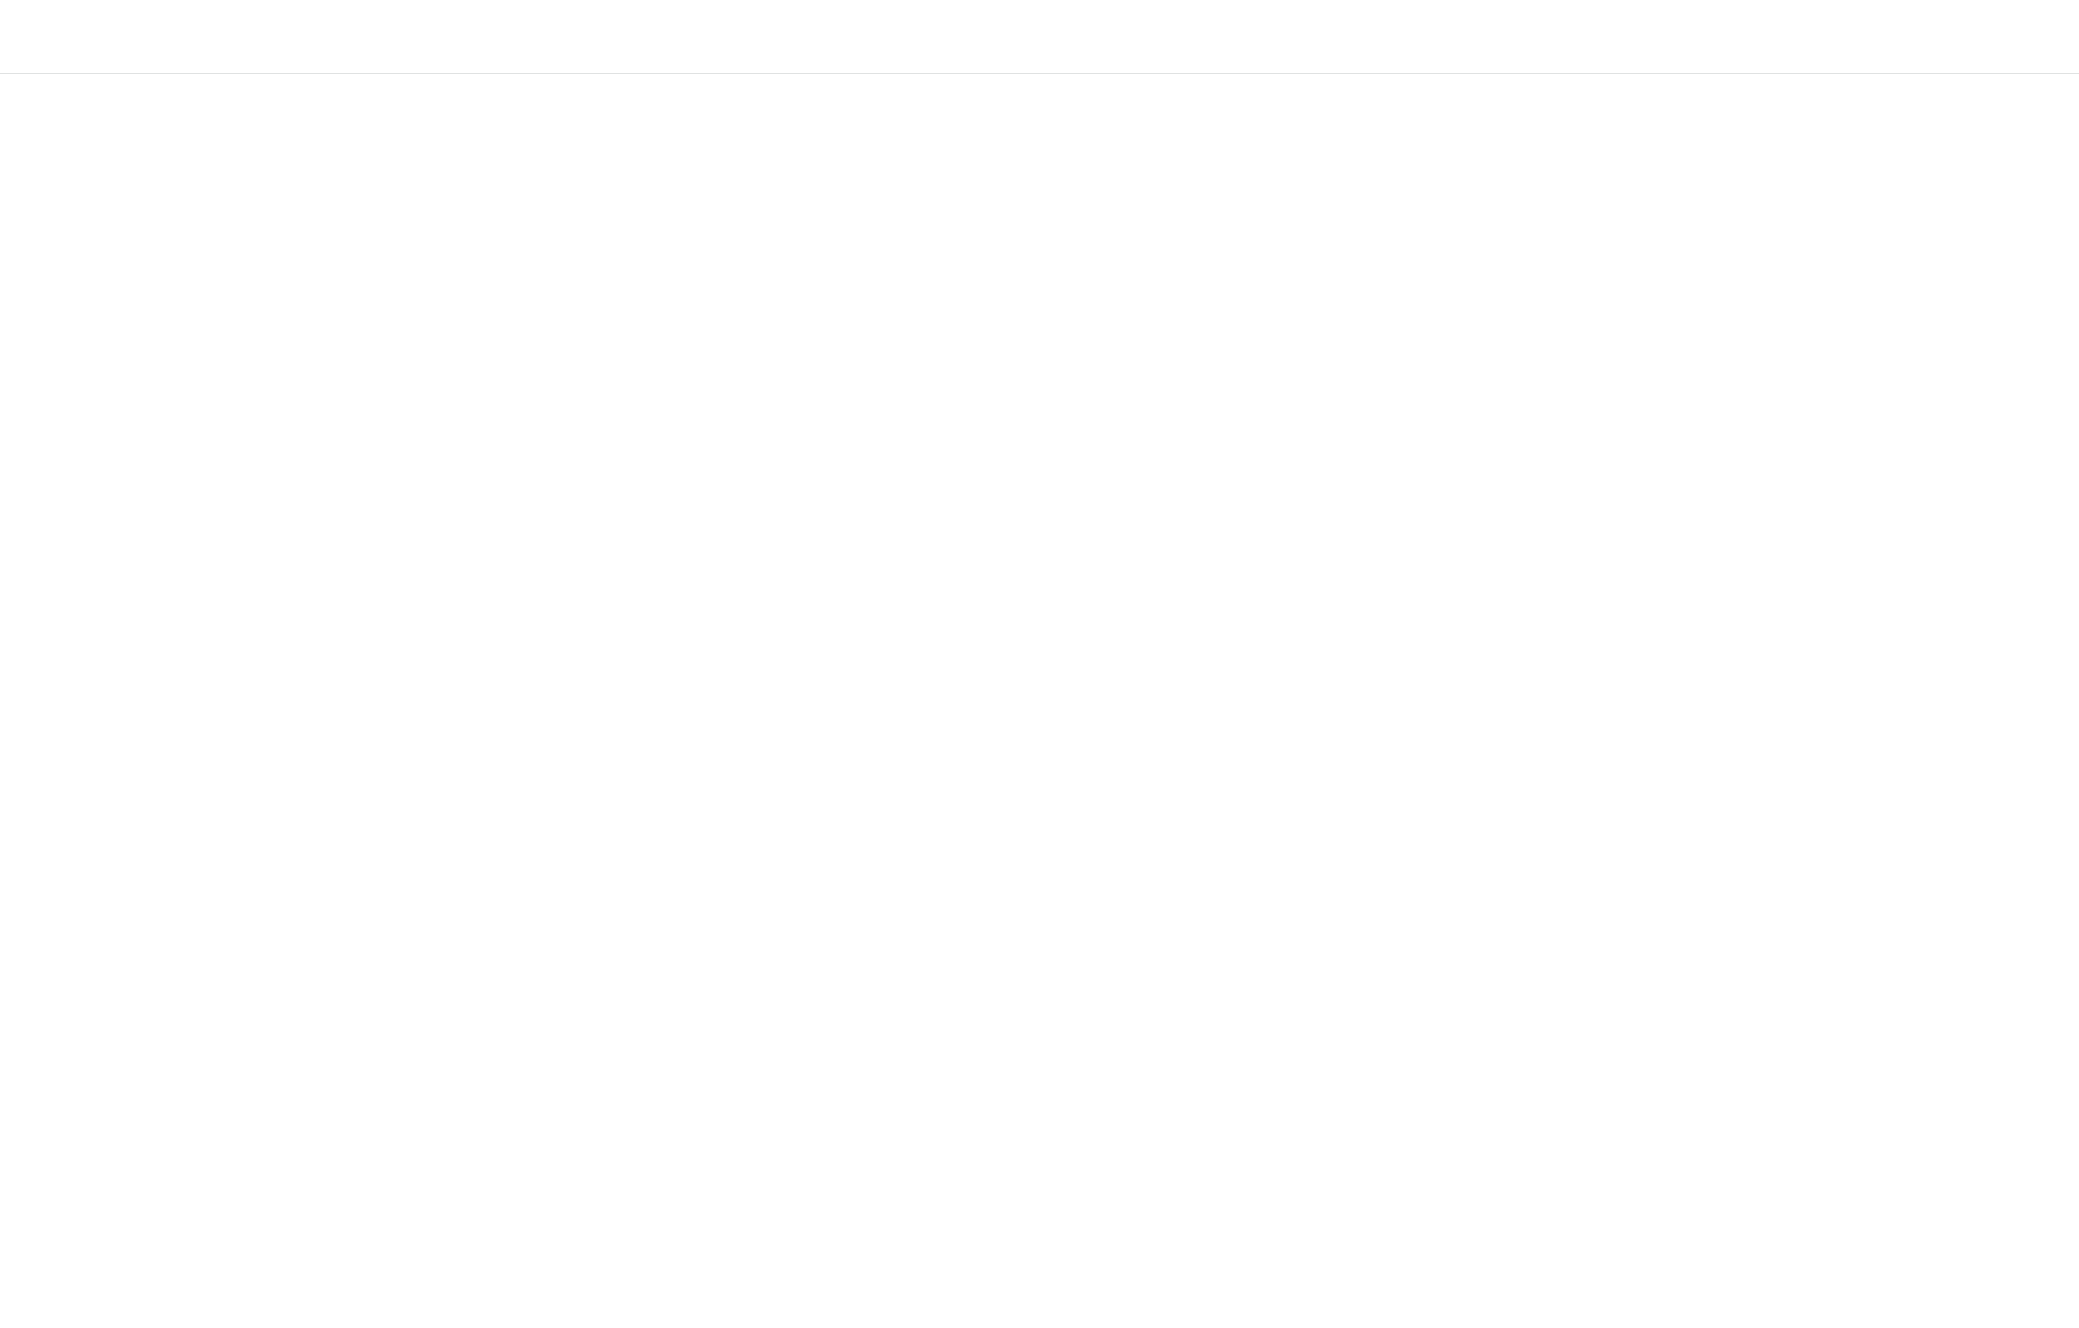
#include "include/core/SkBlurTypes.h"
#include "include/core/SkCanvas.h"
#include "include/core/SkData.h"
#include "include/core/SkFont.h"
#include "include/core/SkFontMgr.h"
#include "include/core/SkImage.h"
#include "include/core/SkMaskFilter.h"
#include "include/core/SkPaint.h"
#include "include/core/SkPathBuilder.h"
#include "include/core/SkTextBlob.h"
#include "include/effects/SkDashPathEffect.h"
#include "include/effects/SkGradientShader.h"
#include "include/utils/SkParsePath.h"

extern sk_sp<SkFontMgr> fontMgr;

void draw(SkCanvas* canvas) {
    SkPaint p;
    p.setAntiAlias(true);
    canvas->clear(0xFFFFFFFF);
    p.setColor(0xFFE0E2E2);
    canvas->drawRect(SkRect::MakeLTRB(0, 73, 2079, 74), p);
}
